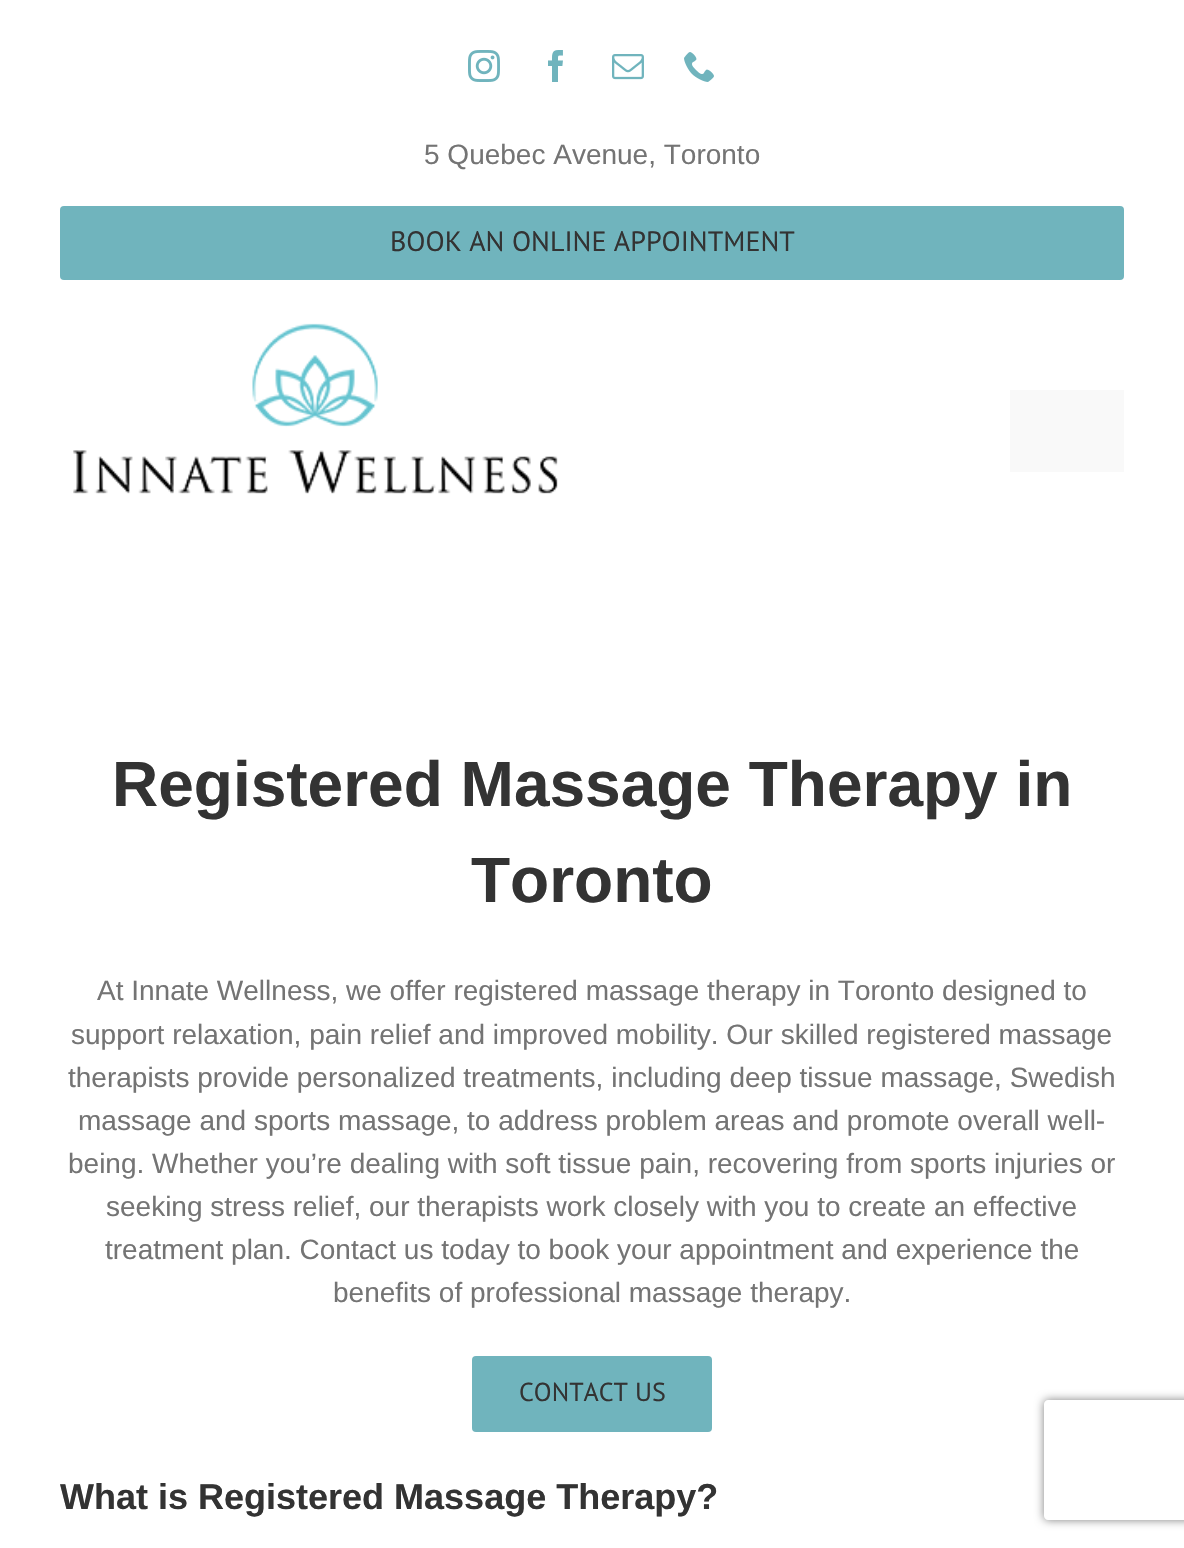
#include "include/core/SkBlurTypes.h"
#include "include/core/SkCanvas.h"
#include "include/core/SkData.h"
#include "include/core/SkFont.h"
#include "include/core/SkFontMgr.h"
#include "include/core/SkImage.h"
#include "include/core/SkMaskFilter.h"
#include "include/core/SkPaint.h"
#include "include/core/SkPathBuilder.h"
#include "include/core/SkTextBlob.h"
#include "include/effects/SkDashPathEffect.h"
#include "include/effects/SkGradientShader.h"
#include "include/utils/SkParsePath.h"

extern sk_sp<SkFontMgr> fontMgr;

void draw(SkCanvas* canvas) {
    SkPaint p;
    p.setAntiAlias(true);
    auto font = [&](const char* family, int weight, float size, bool italic = false) {
        SkFontStyle style(weight, SkFontStyle::kNormal_Width,
            italic ? SkFontStyle::kItalic_Slant : SkFontStyle::kUpright_Slant);
        SkFont result(fontMgr->matchFamilyStyle(family, style), size);
        result.setSubpixel(true);
        return result;
    };
    auto drawPhoto = [&](const char* path, float l, float t, float r, float b) {
        auto image = SkImages::DeferredFromEncodedData(SkData::MakeFromFileName(path));
        canvas->drawImageRect(image, SkRect::MakeLTRB(l, t, r, b), SkSamplingOptions());
    };
    canvas->clear(0xFFFFFFFF);
    drawPhoto("media/1.png", 468, 50, 500, 82);
    drawPhoto("media/2.png", 548, 50, 563, 82);
    drawPhoto("media/3.png", 612, 54, 644, 80);
    drawPhoto("media/4.png", 684, 52, 714, 82);
    auto font1 = font("Liberation Sans", 400, 28);
    p.setColor(0xFF747474);
    canvas->drawString("5 Quebec Avenue, Toronto", 424, 164, font1, p);
    p.setColor(0xFF70B4BD);
    canvas->drawRoundRect(SkRect::MakeLTRB(60, 206, 1124, 280), 4, 4, p);
    auto font2 = font("PT Sans", 400, 28);
    p.setColor(0xFF333333);
    canvas->drawString("BOOK AN ONLINE APPOINTMENT", 390, 251, font2, p);
    drawPhoto("media/5.png", 73, 323, 558, 494);
    p.setColor(0xFFF9F9F9);
    canvas->drawRect(SkRect::MakeLTRB(1010, 390, 1124, 472), p);
    auto font3 = font("Liberation Sans", 700, 64);
    p.setColor(0xFF333333);
    canvas->drawString("Registered Massage Therapy in", 112, 806, font3, p);
    canvas->drawString("Toronto", 471, 902, font3, p);
    p.setColor(0xFF747474);
    {
        const struct { const char* s; float x, y; } items[] = {
            {"At Innate Wellness, we offer registered massage therapy in Toronto designed to", 97, 1000},
            {"support relaxation, pain relief and improved mobility. Our skilled registered massage", 71, 1044},
            {"therapists provide personalized treatments, including deep tissue massage, Swedish", 68, 1087},
            {"massage and sports massage, to address problem areas and promote overall well-", 78, 1130},
            {"being. Whether you’re dealing with soft tissue pain, recovering from sports injuries or", 68, 1173},
            {"seeking stress relief, our therapists work closely with you to create an effective", 106, 1216},
            {"treatment plan. Contact us today to book your appointment and experience the", 105, 1259},
            {"benefits of professional massage therapy.", 333, 1302},
        };
        for (auto [s, x, y] : items) {
            canvas->drawString(s, x, y, font1, p);
        }
    }
    p.setColor(0xFF70B4BD);
    canvas->drawRoundRect(SkRect::MakeLTRB(472, 1356, 712, 1432), 4, 4, p);
    auto font4 = font("PT Sans", 400, 26);
    p.setColor(0xFF333333);
    canvas->drawString("CONTACT US", 519, 1401, font4, p);
    auto font5 = font("Liberation Sans", 700, 36);
    canvas->drawString("What is Registered Massage Therapy?", 60, 1509, font5, p);
    canvas->save();
    canvas->clipPath(SkPathBuilder(SkPathFillType::kEvenOdd).moveTo(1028, 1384).lineTo(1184, 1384).lineTo(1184, 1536).lineTo(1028, 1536).close().moveTo(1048, 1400).lineTo(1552, 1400).cubicTo(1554, 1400, 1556, 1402, 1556, 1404).lineTo(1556, 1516).cubicTo(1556, 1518, 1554, 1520, 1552, 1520).lineTo(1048, 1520).cubicTo(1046, 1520, 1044, 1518, 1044, 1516).lineTo(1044, 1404).cubicTo(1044, 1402, 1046, 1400, 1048, 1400).close().detach(), true);
    p.setColor(0xFF808080);
    p.setMaskFilter(SkMaskFilter::MakeBlur(kNormal_SkBlurStyle, 5));
    canvas->drawRoundRect(SkRect::MakeLTRB(1044, 1400, 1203, 1520), 4, 4, p);
    p.setMaskFilter(nullptr);
    canvas->restore();
}
